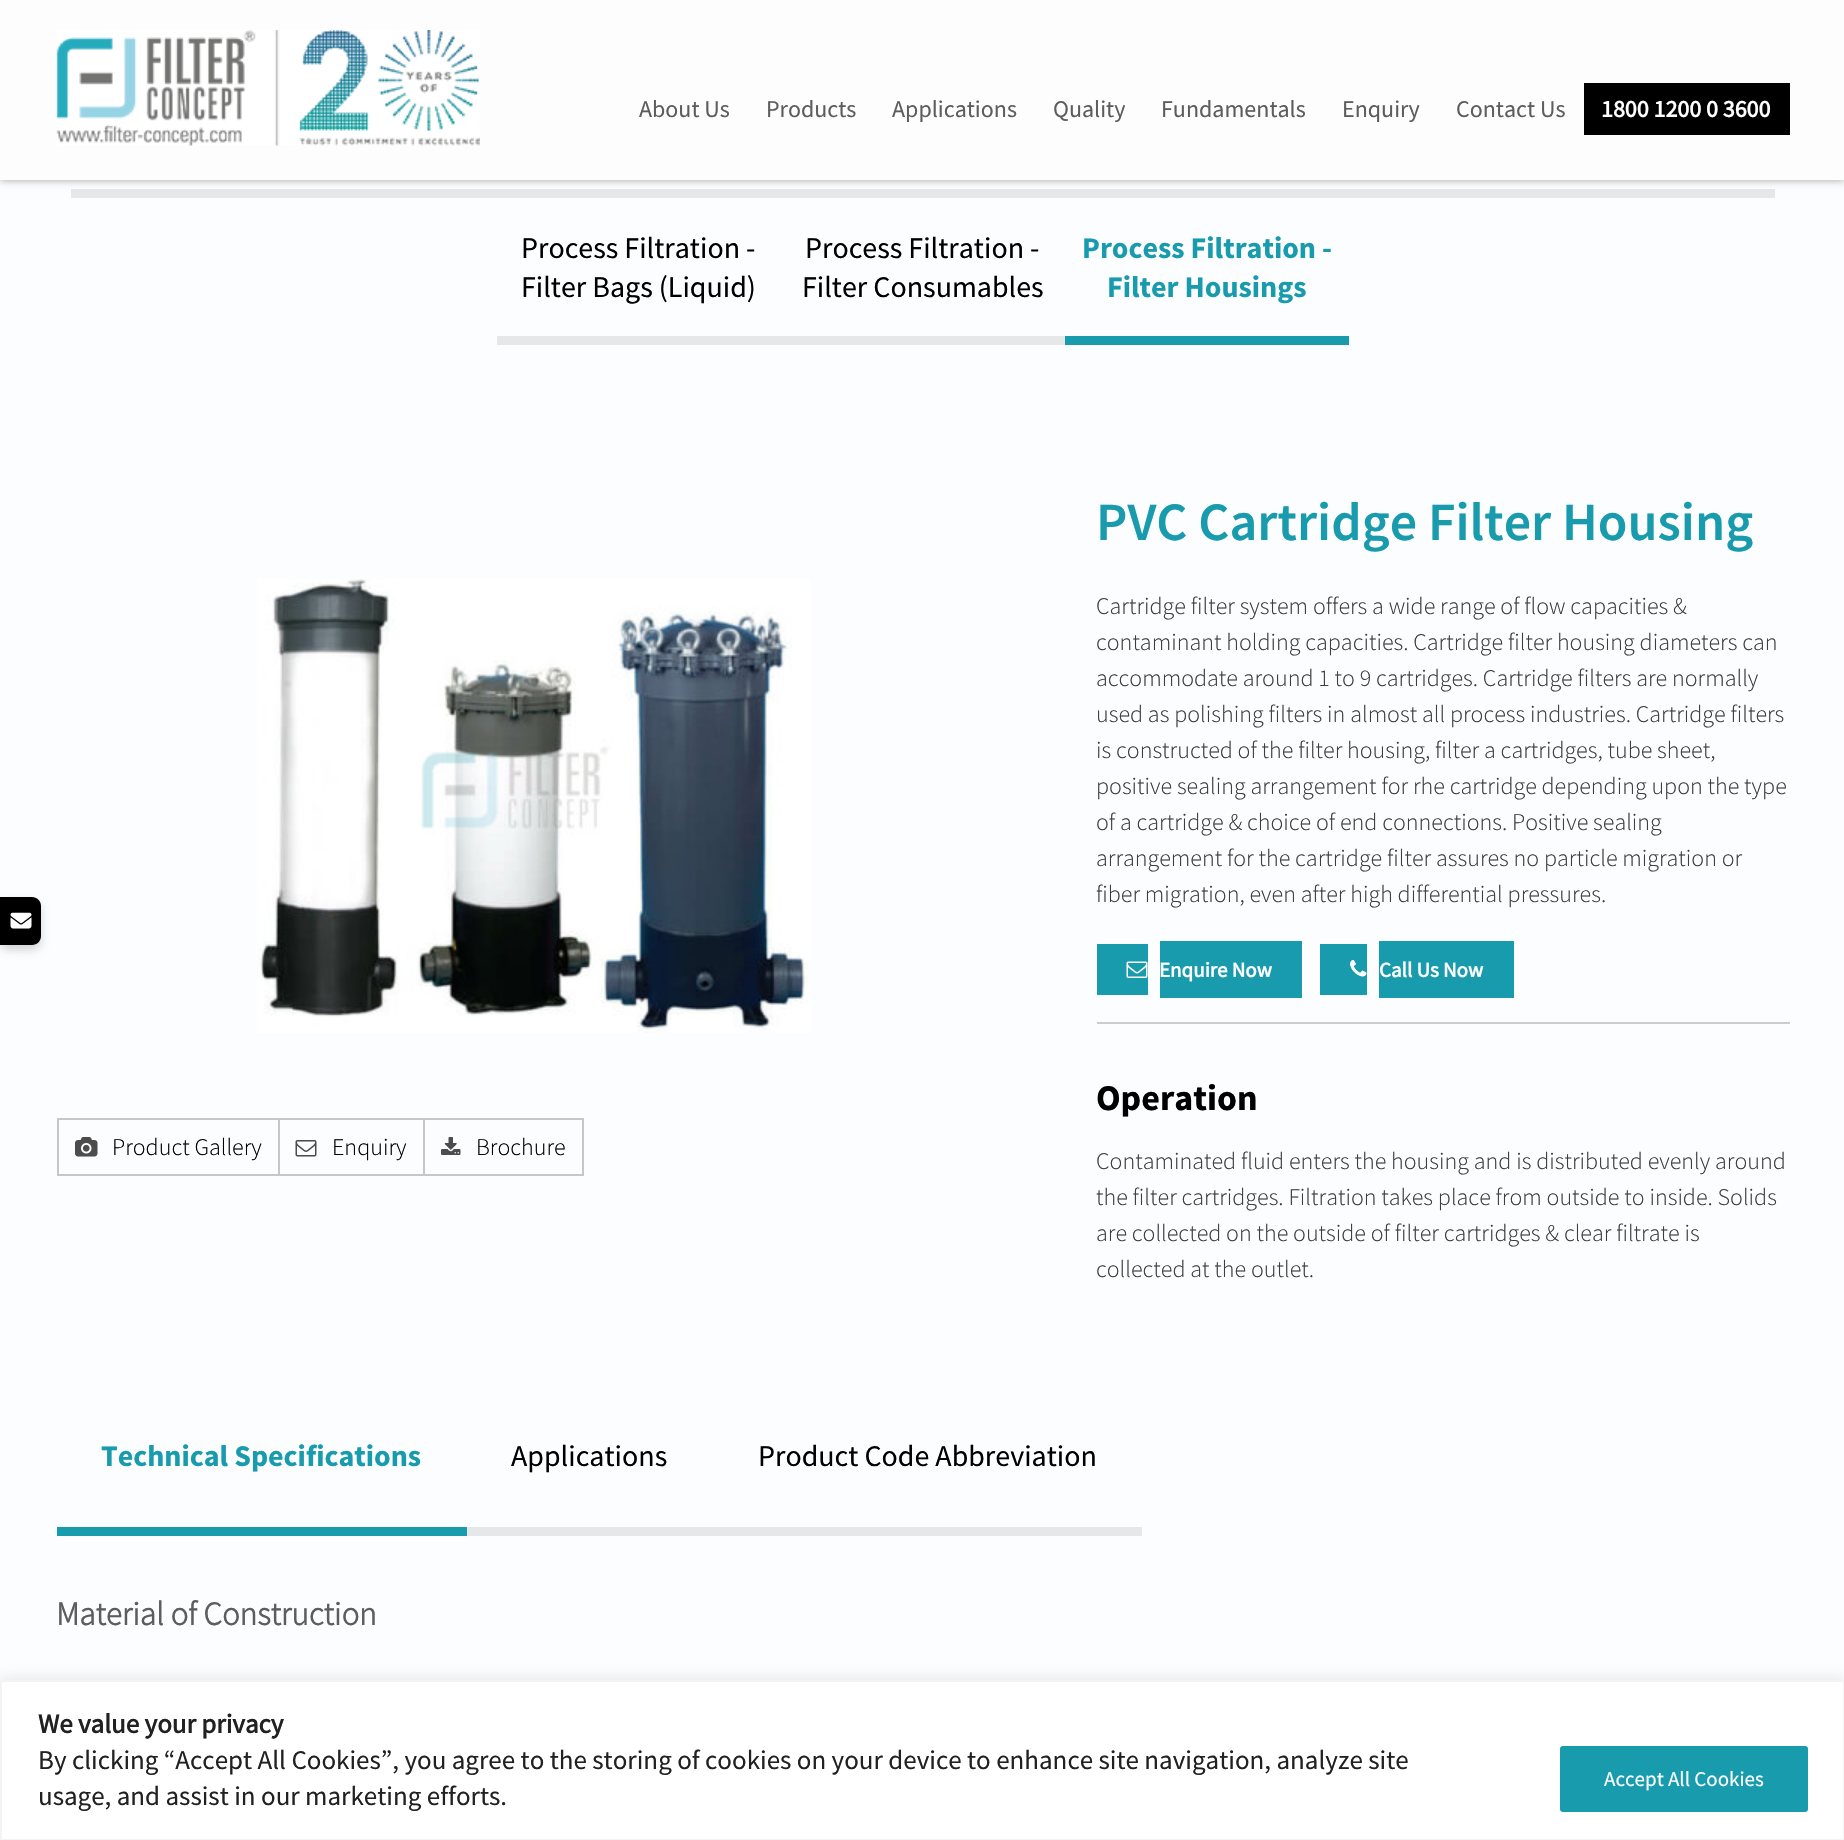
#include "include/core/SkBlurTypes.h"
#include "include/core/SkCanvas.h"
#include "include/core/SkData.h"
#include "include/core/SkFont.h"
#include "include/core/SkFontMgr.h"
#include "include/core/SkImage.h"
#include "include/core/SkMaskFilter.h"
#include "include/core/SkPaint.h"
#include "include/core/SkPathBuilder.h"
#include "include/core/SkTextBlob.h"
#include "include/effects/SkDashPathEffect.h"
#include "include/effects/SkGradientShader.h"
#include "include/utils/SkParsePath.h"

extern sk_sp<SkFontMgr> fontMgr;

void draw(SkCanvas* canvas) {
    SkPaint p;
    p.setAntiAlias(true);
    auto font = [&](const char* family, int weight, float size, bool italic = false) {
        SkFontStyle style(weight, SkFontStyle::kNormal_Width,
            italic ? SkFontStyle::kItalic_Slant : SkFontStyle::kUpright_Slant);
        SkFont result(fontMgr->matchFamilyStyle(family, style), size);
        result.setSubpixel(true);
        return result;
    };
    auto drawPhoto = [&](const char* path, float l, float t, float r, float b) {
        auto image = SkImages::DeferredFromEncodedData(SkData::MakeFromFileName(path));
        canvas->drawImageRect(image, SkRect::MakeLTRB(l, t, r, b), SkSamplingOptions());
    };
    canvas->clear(0xFFFCFDFE);
    p.setColor(0x29000000);
    p.setMaskFilter(SkMaskFilter::MakeBlur(kNormal_SkBlurStyle, 4.5f));
    canvas->drawRoundRect(SkRect::MakeLTRB(0, 902, 41, 950), 9, 9, p);
    p.setMaskFilter(nullptr);
    p.setColor(0xFF000000);
    canvas->drawPath(SkPathBuilder().moveTo(0, 897).lineTo(32, 897).cubicTo(37, 897, 41, 901, 41, 906).lineTo(41, 936).cubicTo(41, 941, 37, 945, 32, 945).lineTo(0, 945).close().detach(), p);
    drawPhoto("media/1.png", 10, 912, 32, 929);
    p.setColor(0xFFE6E7E8);
    canvas->drawRect(SkRect::MakeLTRB(71, 189, 1775, 198), p);
    p.setColor(0xFFA2A2A2);
    p.setMaskFilter(SkMaskFilter::MakeBlur(kNormal_SkBlurStyle, 4));
    canvas->drawRect(SkRect::MakeLTRB(0, 0, 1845, 180), p);
    p.setMaskFilter(nullptr);
    p.setColor(0xFFFDFDFE);
    canvas->drawRect(SkRect::MakeLTRB(0, 0, 1844, 180), p);
    drawPhoto("media/2.png", 56, 30, 480, 146);
    auto font1 = font("Source Sans Pro", 400, 24);
    p.setColor(0xFF5D5D5D);
    {
        const struct { const char* s; float x, y; } items[] = {
            {"About Us", 639, 117},
            {"Products", 766, 117},
            {"Applications", 892, 117},
            {"Quality", 1053, 117},
            {"Fundamentals", 1161, 117},
            {"Enquiry", 1342, 117},
            {"Contact Us", 1456, 117},
        };
        for (auto [s, x, y] : items) {
            canvas->drawString(s, x, y, font1, p);
        }
    }
    p.setColor(0xFF000000);
    canvas->drawRect(SkRect::MakeLTRB(1584, 83, 1790, 135), p);
    auto font2 = font("Source Sans Pro", 700, 24);
    p.setColor(0xFFFFFFFF);
    canvas->drawString("1800 1200 0 3600", 1601, 117, font2, p);
    p.setColor(0xFFE6E7E8);
    canvas->drawRect(SkRect::MakeLTRB(497, 336, 1065, 345), p);
    auto font3 = font("Source Sans Pro", 400, 30);
    p.setColor(0xFF000000);
    {
        const struct { const char* s; float x, y; } items[] = {
            {"Process Filtration -", 521, 258},
            {"Filter Bags (Liquid)", 521, 297},
            {"Process Filtration -", 805, 258},
            {"Filter Consumables", 802, 297},
        };
        for (auto [s, x, y] : items) {
            canvas->drawString(s, x, y, font3, p);
        }
    }
    auto font4 = font("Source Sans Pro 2", 700, 30);
    p.setColor(0xFF199BAE);
    canvas->drawString("Process Filtration -", 1082, 258, font4, p);
    canvas->drawString("Filter Housings", 1107, 297, font4, p);
    canvas->drawRect(SkRect::MakeLTRB(1065, 336, 1349, 345), p);
    drawPhoto("media/3.png", 257, 579, 811, 1033);
    p.setStyle(SkPaint::kStroke_Style);
    p.setStrokeWidth(2);
    p.setColor(0xFFC7C7C7);
    canvas->drawRect(SkRect::MakeLTRB(58, 1119, 583, 1175), p);
    p.setStyle(SkPaint::kFill_Style);
    canvas->drawRect(SkRect::MakeLTRB(278, 1119, 280, 1175), p);
    drawPhoto("media/4.png", 75, 1137, 98, 1157);
    auto font5 = font("Source Sans Pro", 300, 24);
    p.setColor(0xFF000000);
    canvas->drawString("Product Gallery", 112, 1155, font5, p);
    p.setColor(0xFFC7C7C7);
    canvas->drawRect(SkRect::MakeLTRB(423, 1119, 425, 1175), p);
    drawPhoto("media/5.png", 295, 1140, 317, 1157);
    p.setColor(0xFF000000);
    canvas->drawString("Enquiry", 332, 1155, font5, p);
    drawPhoto("media/6.png", 441, 1137, 461, 1155);
    canvas->drawString("Brochure", 476, 1155, font5, p);
    auto font6 = font("Source Sans Pro", 600, 54);
    p.setColor(0xFF199BAE);
    canvas->drawString("PVC Cartridge Filter Housing", 1096, 540, font6, p);
    p.setColor(0xFF3D3D3D);
    {
        const struct { const char* s; float x, y; } items[] = {
            {"Cartridge filter system offers a wide range of flow capacities &", 1096, 614},
            {"contaminant holding capacities. Cartridge filter housing diameters can", 1096, 650},
            {"accommodate around 1 to 9 cartridges. Cartridge filters are normally", 1096, 686},
            {"used as polishing filters in almost all process industries. Cartridge filters", 1096, 722},
            {"is constructed of the filter housing, filter a cartridges, tube sheet,", 1096, 758},
            {"positive sealing arrangement for rhe cartridge depending upon the type", 1096, 794},
            {"of a cartridge & choice of end connections. Positive sealing", 1096, 830},
            {"arrangement for the cartridge filter assures no particle migration or", 1096, 866},
            {"fiber migration, even after high differential pressures.", 1096, 902},
        };
        for (auto [s, x, y] : items) {
            canvas->drawString(s, x, y, font5, p);
        }
    }
    p.setColor(0xFF199BAE);
    canvas->drawRect(SkRect::MakeLTRB(1097, 944, 1148, 995), p);
    canvas->drawRect(SkRect::MakeLTRB(1160, 941, 1302, 998), p);
    drawPhoto("media/7.png", 1126, 961, 1148, 978);
    auto font7 = font("Source Sans Pro", 700, 21);
    p.setColor(0xFFFFFFFF);
    canvas->drawString("Enquire Now", 1159, 977, font7, p);
    p.setColor(0xFF199BAE);
    canvas->drawRect(SkRect::MakeLTRB(1320, 944, 1367, 995), p);
    canvas->drawRect(SkRect::MakeLTRB(1379, 941, 1514, 998), p);
    drawPhoto("media/8.png", 1350, 960, 1367, 977);
    p.setColor(0xFFFFFFFF);
    canvas->drawString("Call Us Now", 1379, 977, font7, p);
    p.setColor(0xFFCCCCCC);
    canvas->drawRect(SkRect::MakeLTRB(1097, 1022, 1790, 1024), p);
    auto font8 = font("Source Sans Pro 2", 700, 36);
    p.setColor(0xFF000000);
    canvas->drawString("Operation", 1096, 1110, font8, p);
    p.setColor(0xFF3D3D3D);
    {
        const struct { const char* s; float x, y; } items[] = {
            {"Contaminated fluid enters the housing and is distributed evenly around", 1096, 1169},
            {"the filter cartridges. Filtration takes place from outside to inside. Solids", 1096, 1205},
            {"are collected on the outside of filter cartridges & clear filtrate is", 1096, 1241},
            {"collected at the outlet.", 1096, 1277},
        };
        for (auto [s, x, y] : items) {
            canvas->drawString(s, x, y, font5, p);
        }
    }
    p.setColor(0xFF199BAE);
    canvas->drawString("Technical Specifications", 101, 1466, font4, p);
    canvas->drawRect(SkRect::MakeLTRB(57, 1527, 467, 1536), p);
    p.setColor(0xFFE6E7E8);
    canvas->drawRect(SkRect::MakeLTRB(467, 1527, 1142, 1536), p);
    p.setColor(0xFF000000);
    canvas->drawString("Applications", 511, 1466, font3, p);
    canvas->drawString("Product Code Abbreviation", 758, 1466, font3, p);
    auto font9 = font("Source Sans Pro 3", 700, 33);
    p.setColor(0xFF5D5D5D);
    canvas->drawString("Material of Construction", 56, 1625, font9, p);
    p.setColor(0x4DACABAB);
    p.setMaskFilter(SkMaskFilter::MakeBlur(kNormal_SkBlurStyle, 7.5f));
    canvas->drawRect(SkRect::MakeLTRB(0, 1679, 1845, 1839), p);
    p.setMaskFilter(nullptr);
    p.setColor(0xFFFFFFFF);
    canvas->drawRect(SkRect::MakeLTRB(1, 1681, 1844, 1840), p);
    p.setStyle(SkPaint::kStroke_Style);
    p.setColor(0xFFF4F4F4);
    canvas->drawRect(SkRect::MakeLTRB(1, 1681, 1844, 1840), p);
    auto font10 = font("Source Sans Pro", 700, 27);
    p.setStyle(SkPaint::kFill_Style);
    p.setColor(0xFF212121);
    canvas->drawString("We value your privacy", 38, 1733, font10, p);
    auto font11 = font("Source Sans Pro", 400, 27);
    canvas->drawString("By clicking “Accept All Cookies”, you agree to the storing of cookies on your device to enhance site navigation, analyze site", 38, 1769, font11, p);
    canvas->drawString("usage, and assist in our marketing efforts.", 38, 1805, font11, p);
    p.setColor(0xFF199BAE);
    canvas->drawRoundRect(SkRect::MakeLTRB(1561.5f, 1747.5f, 1806.5f, 1810.5f), 1.5f, 1.5f, p);
    p.setStyle(SkPaint::kStroke_Style);
    p.setStrokeWidth(3);
    canvas->drawRoundRect(SkRect::MakeLTRB(1561.5f, 1747.5f, 1806.5f, 1810.5f), 1.5f, 1.5f, p);
    auto font12 = font("Source Sans Pro", 400, 21);
    p.setStyle(SkPaint::kFill_Style);
    p.setColor(0xFFFFFFFF);
    canvas->drawString("Accept All Cookies", 1604, 1786, font12, p);
}
